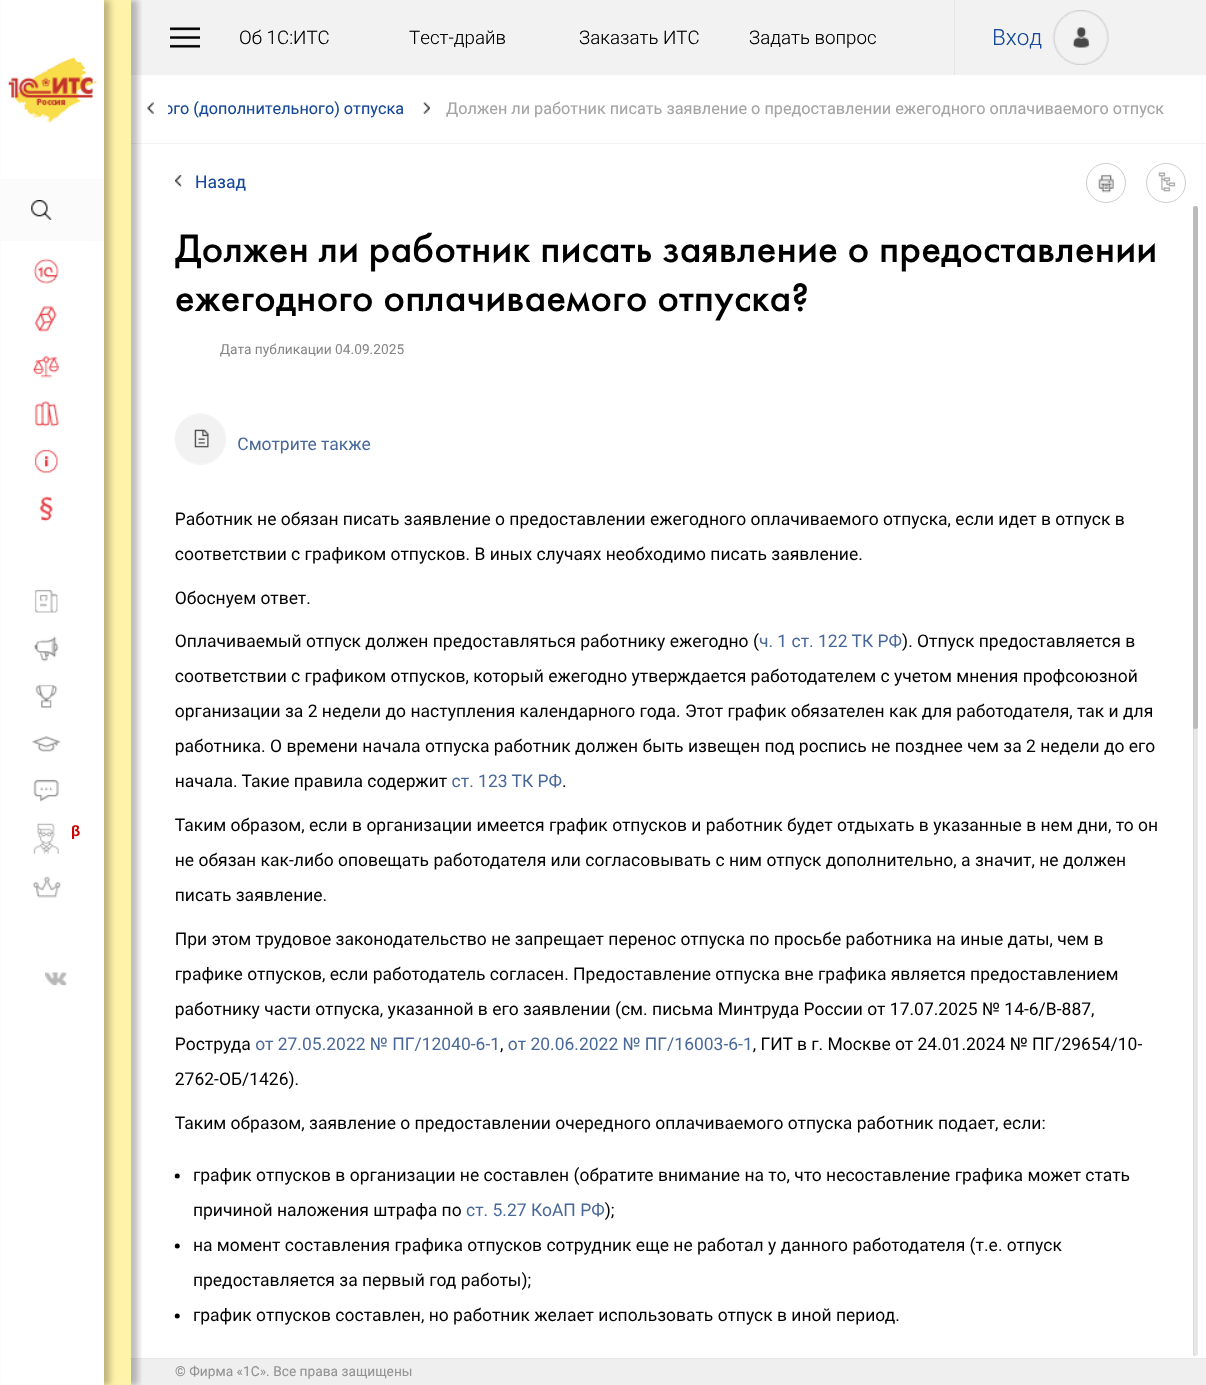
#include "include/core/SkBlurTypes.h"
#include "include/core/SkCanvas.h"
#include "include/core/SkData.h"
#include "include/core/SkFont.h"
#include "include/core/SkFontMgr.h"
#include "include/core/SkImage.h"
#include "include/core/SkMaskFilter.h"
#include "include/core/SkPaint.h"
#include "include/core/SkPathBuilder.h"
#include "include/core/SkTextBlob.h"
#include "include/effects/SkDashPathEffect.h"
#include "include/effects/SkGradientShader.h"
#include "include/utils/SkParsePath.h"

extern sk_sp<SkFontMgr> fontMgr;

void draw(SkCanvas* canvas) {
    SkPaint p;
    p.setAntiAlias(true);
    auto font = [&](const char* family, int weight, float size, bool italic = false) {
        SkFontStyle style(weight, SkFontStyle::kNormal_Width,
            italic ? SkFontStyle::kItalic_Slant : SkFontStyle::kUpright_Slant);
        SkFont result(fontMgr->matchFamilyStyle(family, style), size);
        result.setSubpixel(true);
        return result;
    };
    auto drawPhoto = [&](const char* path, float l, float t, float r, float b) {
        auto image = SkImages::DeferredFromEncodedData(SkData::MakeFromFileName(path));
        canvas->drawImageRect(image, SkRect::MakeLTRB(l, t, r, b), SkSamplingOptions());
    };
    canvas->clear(0xFFFFFFFF);
    p.setColor(0xFFF2F2F2);
    canvas->drawRect(SkRect::MakeLTRB(131, 0, 1206, 75), p);
    drawPhoto("media/1.png", 170, 27, 200, 48);
    auto font1 = font("Roboto", 300, 18.75f);
    p.setColor(0xFF000000);
    {
        const struct { const char* s; float x, y; } items[] = {
            {"Об 1С:ИТС", 239, 44},
            {"Тест-драйв", 409, 44},
            {"Заказать ИТС", 579, 44},
            {"Задать вопрос", 749, 44},
        };
        for (auto [s, x, y] : items) {
            canvas->drawString(s, x, y, font1, p);
        }
    }
    p.setColor(0xFFE6E6E6);
    canvas->drawRect(SkRect::MakeLTRB(954, 0, 955, 75), p);
    auto font2 = font("Roboto", 300, 22.5f);
    p.setColor(0xFF16489B);
    canvas->drawString("Вход", 992, 45, font2, p);
    drawPhoto("media/2.png", 1052, 10, 1109, 65);
    p.setColor(0xFFF2F2F2);
    canvas->drawRect(SkRect::MakeLTRB(131, 143, 1206, 144), p);
    drawPhoto("media/3.png", 147, 102, 154, 114);
    canvas->save();
    canvas->clipRect(SkRect::MakeLTRB(168, 75, 1169, 141));
    auto font3 = font("Roboto", 400, 16.25f);
    p.setColor(0xFF16489B);
    canvas->drawString("ого (дополнительного) отпуска", 164, 114, font3, p);
    canvas->restore();
    drawPhoto("media/4.png", 423, 102, 430, 114);
    p.setColor(0xFFA4A4A4);
    canvas->drawString("Должен ли работник писать заявление о предоставлении ежегодного оплачиваемого отпуск", 446, 114, font3, p);
    drawPhoto("media/5.png", 175, 175, 182, 187);
    auto font4 = font("Roboto", 400, 17.5f);
    p.setColor(0xFF16489B);
    canvas->drawString("Назад", 195, 188, font4, p);
    drawPhoto("media/6.png", 1098, 174, 1114, 193);
    p.setStyle(SkPaint::kStroke_Style);
    p.setStrokeWidth(1);
    p.setColor(0xFFCCCCCC);
    canvas->drawCircle(1106, 183, 19.5f, p);
    drawPhoto("media/7.png", 1158, 172, 1176, 192);
    canvas->drawCircle(1166, 183, 19.5f, p);
    drawPhoto("media/8.png", 174, 232, 1157, 1325);
    p.setStyle(SkPaint::kFill_Style);
    p.setColor(0xFFE7E7E7);
    canvas->drawRoundRect(SkRect::MakeLTRB(1193, 206, 1198, 1356), 2.5f, 2.5f, p);
    p.setColor(0xFFD8D8D8);
    canvas->drawPath(SkPathBuilder().moveTo(1196, 206).cubicTo(1194, 206, 1193, 207, 1193, 208).lineTo(1193, 1354).lineTo(1194, 1356).lineTo(1196, 1356).cubicTo(1195, 1356, 1194, 1355, 1194, 1354).lineTo(1194, 209).cubicTo(1194, 207, 1195, 206, 1196, 206).close().detach(), p);
    p.setColor(0xFFBBBBBB);
    canvas->drawRoundRect(SkRect::MakeLTRB(1193, 206, 1198, 729), 2.5f, 2.5f, p);
    p.setColor(0xFFFFF3A9);
    canvas->drawRect(SkRect::MakeLTRB(104, 0, 131, 1385), p);
    p.setColor(0x40000000);
    p.setMaskFilter(SkMaskFilter::MakeBlur(kNormal_SkBlurStyle, 3));
    canvas->drawRect(SkRect::MakeLTRB(6, 0, 110, 1385), p);
    p.setMaskFilter(nullptr);
    p.setColor(0xFFFFFFFF);
    canvas->drawRect(SkRect::MakeLTRB(1, 0, 104, 1385), p);
    drawPhoto("media/9.png", 8, 57, 98, 123);
    p.setColor(0xFFFBFBFB);
    canvas->drawRect(SkRect::MakeLTRB(0, 179, 104, 241), p);
    drawPhoto("media/10.png", 31, 200, 52, 220);
    drawPhoto("media/11.png", 33, 258, 59, 284);
    drawPhoto("media/12.png", 34, 306, 57, 332);
    drawPhoto("media/13.png", 33, 355, 59, 378);
    drawPhoto("media/14.png", 34, 401, 59, 427);
    drawPhoto("media/15.png", 34, 449, 58, 473);
    drawPhoto("media/16.png", 39, 496, 53, 522);
    p.setColor(0xFFEFEFEF);
    canvas->drawRect(SkRect::MakeLTRB(131, 1359, 1206, 1385), p);
    p.setColor(0xFFE8E8E8);
    canvas->drawRect(SkRect::MakeLTRB(131, 1358, 1206, 1359), p);
    canvas->save();
    canvas->clipRect(SkRect::MakeLTRB(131, 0, 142, 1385));
    p.setColor(0x40000000);
    p.setMaskFilter(SkMaskFilter::MakeBlur(kNormal_SkBlurStyle, 3));
    canvas->drawRect(SkRect::MakeLTRB(115, 0, 138, 1385), p);
    p.setMaskFilter(nullptr);
    canvas->restore();
    drawPhoto("media/17.png", 34, 589, 58, 613);
    drawPhoto("media/18.png", 33, 636, 59, 662);
    drawPhoto("media/19.png", 35, 684, 58, 708);
    drawPhoto("media/20.png", 32, 736, 61, 752);
    drawPhoto("media/21.png", 33, 779, 59, 802);
    drawPhoto("media/22.png", 33, 823, 59, 854);
    auto font5 = font("Liberation Sans", 700, 15);
    p.setColor(0xFFCC0000);
    canvas->drawString("β", 71, 836, font5, p);
    drawPhoto("media/23.png", 32, 876, 61, 898);
    drawPhoto("media/24.png", 45, 972, 67, 986);
    auto font6 = font("Roboto", 400, 13.75f);
    p.setColor(0xFF939393);
    canvas->drawString("© Фирма «1С». Все права защищены", 175, 1376, font6, p);
}
